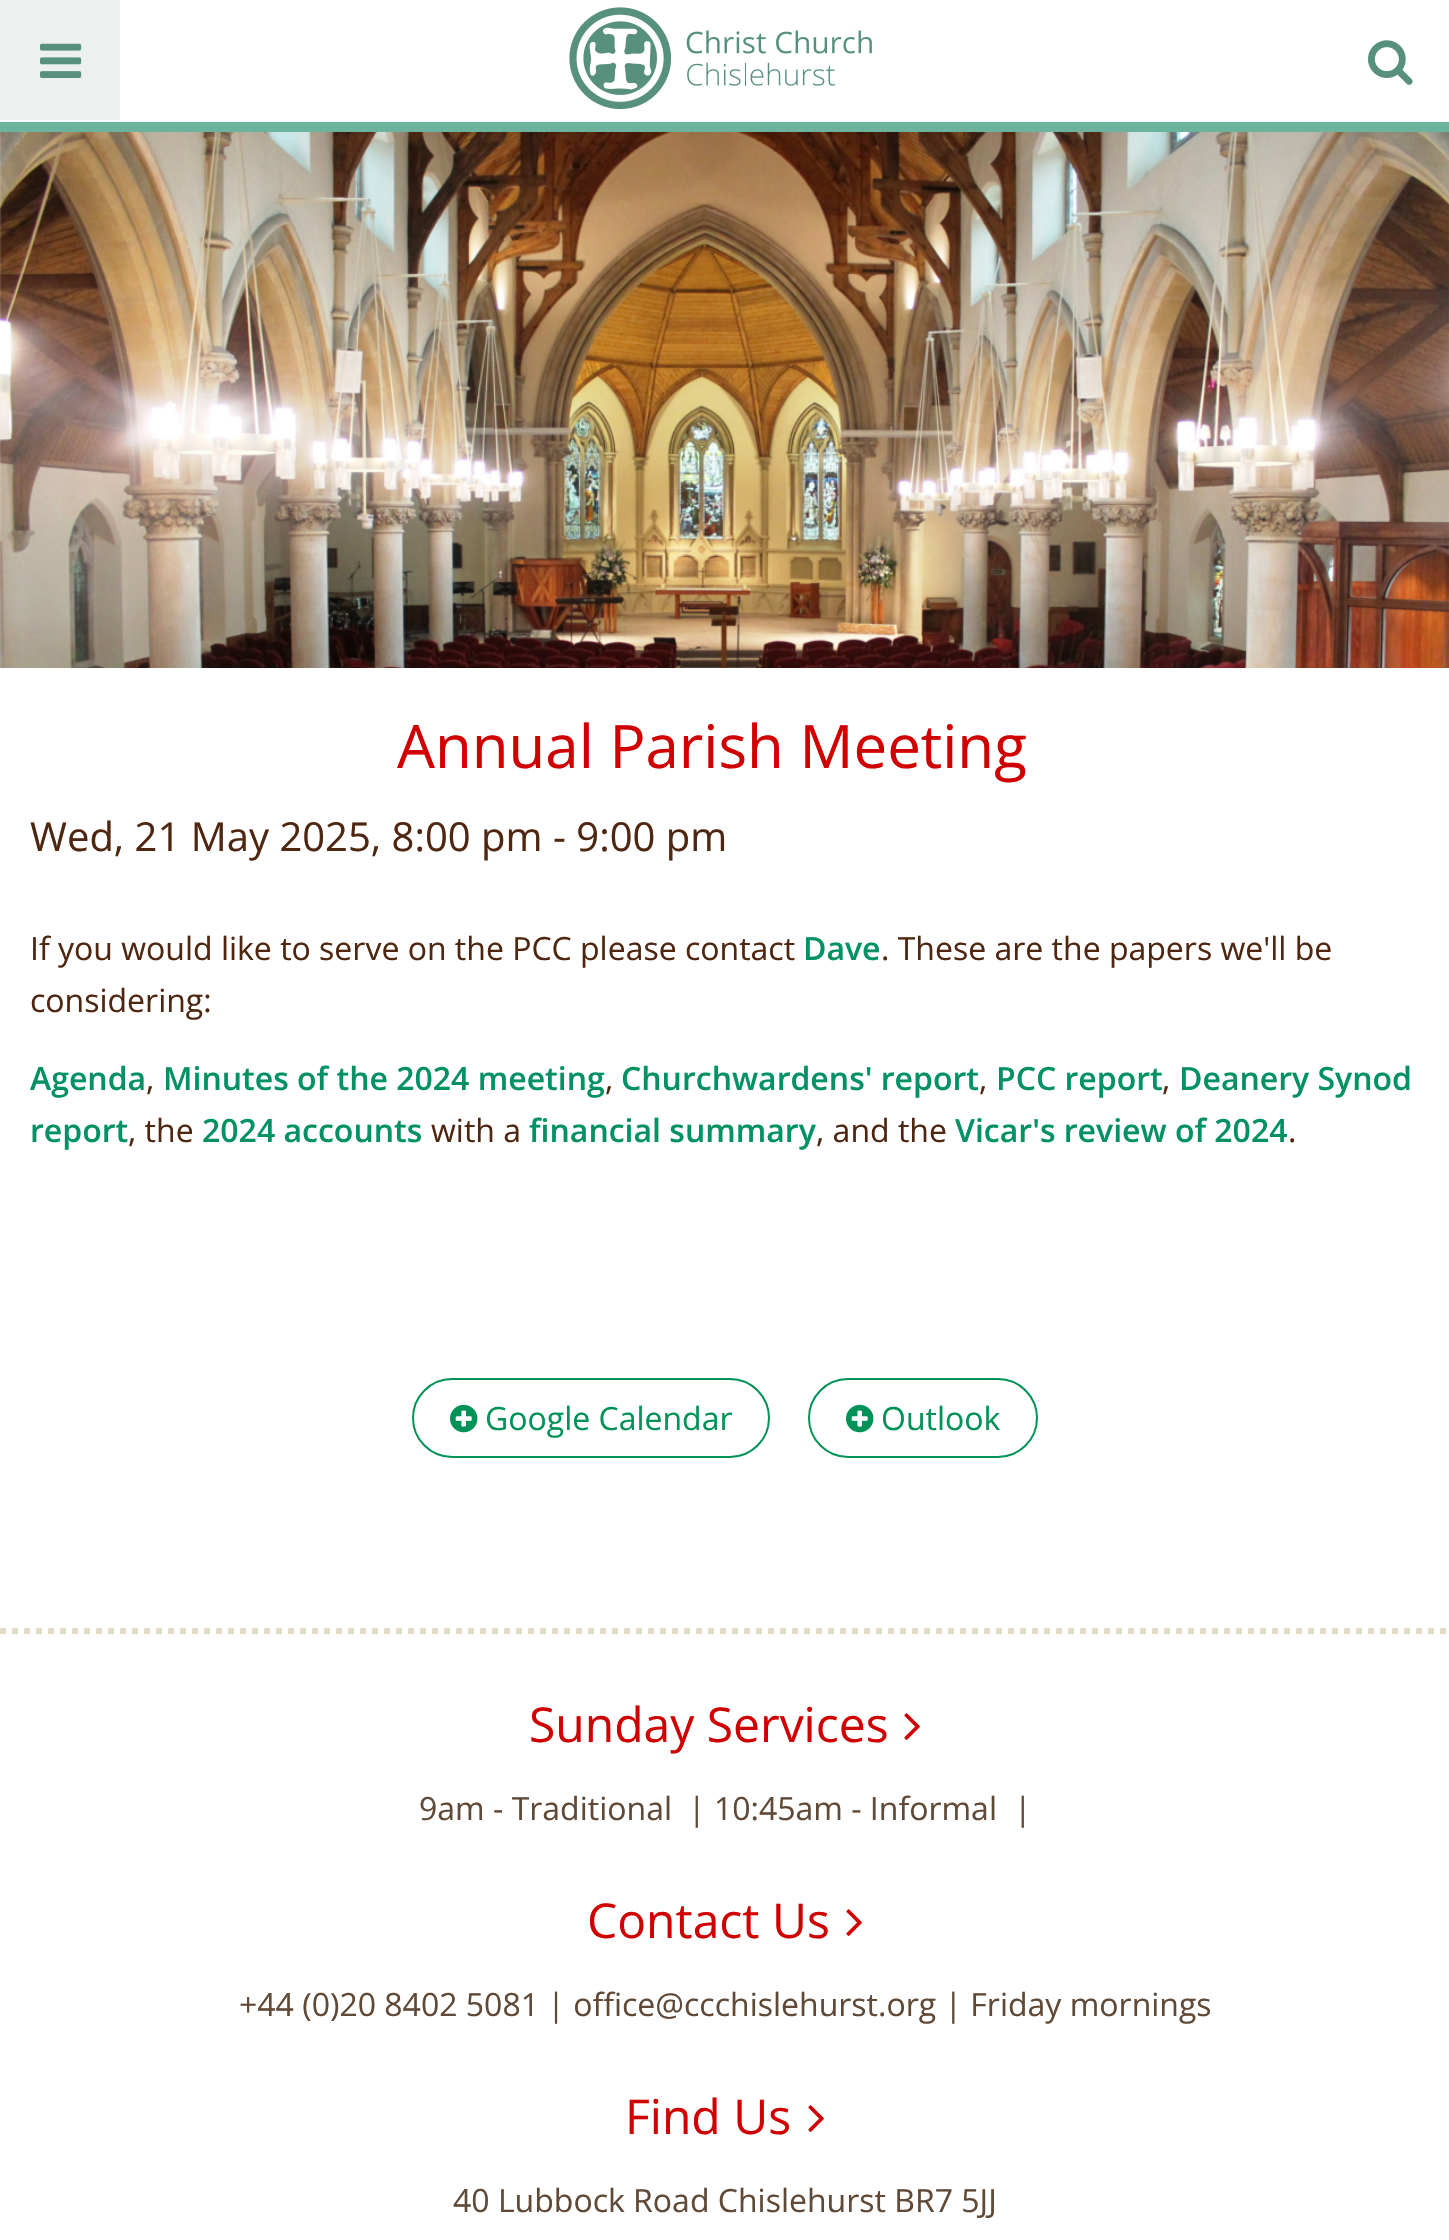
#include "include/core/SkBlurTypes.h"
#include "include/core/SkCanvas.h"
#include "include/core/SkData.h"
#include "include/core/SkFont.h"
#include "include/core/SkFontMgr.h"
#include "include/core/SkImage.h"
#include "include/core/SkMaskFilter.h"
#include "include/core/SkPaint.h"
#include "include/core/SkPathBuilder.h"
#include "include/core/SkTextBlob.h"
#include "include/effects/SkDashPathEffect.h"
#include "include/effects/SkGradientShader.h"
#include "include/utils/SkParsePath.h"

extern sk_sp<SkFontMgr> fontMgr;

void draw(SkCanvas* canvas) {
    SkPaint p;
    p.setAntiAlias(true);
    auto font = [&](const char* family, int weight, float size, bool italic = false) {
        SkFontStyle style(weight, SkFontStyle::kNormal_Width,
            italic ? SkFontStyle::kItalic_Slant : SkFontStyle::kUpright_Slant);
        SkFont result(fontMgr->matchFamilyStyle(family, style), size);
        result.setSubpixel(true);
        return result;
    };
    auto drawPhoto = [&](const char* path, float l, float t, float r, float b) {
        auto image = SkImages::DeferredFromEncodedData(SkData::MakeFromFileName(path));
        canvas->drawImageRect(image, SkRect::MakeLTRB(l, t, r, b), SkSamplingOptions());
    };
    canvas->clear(0xFFFFFFFF);
    p.setColor(0xFF6BB39C);
    canvas->drawRect(SkRect::MakeLTRB(0, 122, 1449, 132), p);
    p.setColor(0xFFECF1EF);
    canvas->drawRect(SkRect::MakeLTRB(0, 0, 120, 120), p);
    drawPhoto("media/1.png", 40, 43, 82, 78);
    drawPhoto("media/2.png", 569, 7, 672, 110);
    drawPhoto("media/3.png", 686, 30, 872, 86);
    drawPhoto("media/4.png", 1368, 40, 1413, 85);
    drawPhoto("media/5.png", 0, 132, 1449, 668);
    auto font1 = font("Open Sans", 400, 60);
    p.setColor(0xFFD00000);
    canvas->drawString("Annual Parish Meeting", 397, 768, font1, p);
    auto font2 = font("Open Sans", 400, 40);
    p.setColor(0xFF4F2711);
    canvas->drawString("Wed, 21 May 2025, 8:00 pm - 9:00 pm", 30, 851, font2, p);
    auto font3 = font("Open Sans", 400, 32);
    canvas->drawString("If you would like to serve on the PCC please contact", 30, 960, font3, p);
    auto font4 = font("Open Sans", 600, 32);
    p.setColor(0xFF019164);
    canvas->drawString("Dave", 803, 960, font4, p);
    p.setColor(0xFF4F2711);
    canvas->drawString(". These are the papers we'll be", 881, 960, font3, p);
    canvas->drawString("considering:", 30, 1012, font3, p);
    p.setColor(0xFF019164);
    canvas->drawString("Agenda", 30, 1090, font4, p);
    p.setColor(0xFF4F2711);
    canvas->drawString(",", 146, 1090, font3, p);
    p.setColor(0xFF019164);
    canvas->drawString("Minutes of the 2024 meeting", 163, 1090, font4, p);
    p.setColor(0xFF4F2711);
    canvas->drawString(",", 605, 1090, font3, p);
    p.setColor(0xFF019164);
    canvas->drawString("Churchwardens' report", 621, 1090, font4, p);
    p.setColor(0xFF4F2711);
    canvas->drawString(",", 979, 1090, font3, p);
    p.setColor(0xFF019164);
    canvas->drawString("PCC report", 996, 1090, font4, p);
    p.setColor(0xFF4F2711);
    canvas->drawString(",", 1162, 1090, font3, p);
    p.setColor(0xFF019164);
    canvas->drawString("Deanery Synod", 1179, 1090, font4, p);
    canvas->drawString("report", 30, 1142, font4, p);
    p.setColor(0xFF4F2711);
    canvas->drawString(", the", 128, 1142, font3, p);
    p.setColor(0xFF019164);
    canvas->drawString("2024 accounts", 202, 1142, font4, p);
    p.setColor(0xFF4F2711);
    canvas->drawString("with a", 431, 1142, font3, p);
    p.setColor(0xFF019164);
    canvas->drawString("financial summary", 529, 1142, font4, p);
    p.setColor(0xFF4F2711);
    canvas->drawString(", and the", 816, 1142, font3, p);
    p.setColor(0xFF019164);
    canvas->drawString("Vicar's review of 2024", 955, 1142, font4, p);
    p.setColor(0xFF4F2711);
    canvas->drawString(".", 1288, 1142, font3, p);
    p.setStyle(SkPaint::kStroke_Style);
    p.setStrokeWidth(2);
    p.setColor(0xFF009256);
    canvas->drawRoundRect(SkRect::MakeLTRB(413, 1379, 769, 1457), 39, 39, p);
    drawPhoto("media/6.png", 450, 1404, 478, 1433);
    p.setStyle(SkPaint::kFill_Style);
    canvas->drawString("Google Calendar", 485, 1430, font3, p);
    p.setStyle(SkPaint::kStroke_Style);
    canvas->drawRoundRect(SkRect::MakeLTRB(809, 1379, 1037, 1457), 39, 39, p);
    drawPhoto("media/6.png", 846, 1404, 874, 1433);
    p.setStyle(SkPaint::kFill_Style);
    canvas->drawString("Outlook", 881, 1430, font3, p);
    p.setStyle(SkPaint::kStroke_Style);
    p.setStrokeWidth(6);
    p.setColor(0xFFE2DBC5);
    p.setPathEffect(SkDashPathEffect::Make({{6, 6}}, 0));
    canvas->drawPath(SkPathBuilder().moveTo(0, 1631).lineTo(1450, 1631).detach(), p);
    p.setPathEffect(nullptr);
    auto font5 = font("Open Sans", 400, 48);
    p.setStyle(SkPaint::kFill_Style);
    p.setColor(0xFFD00000);
    canvas->drawString("Sunday Services", 529, 1742, font5, p);
    drawPhoto("media/7.png", 904, 1713, 920, 1740);
    p.setColor(0xFF604936);
    {
        const struct { const char* s; float x, y; } items[] = {
            {"9am - Traditional", 419, 1820},
            {"| 10:45am - Informal", 688, 1820},
            {"|", 1014, 1820},
        };
        for (auto [s, x, y] : items) {
            canvas->drawString(s, x, y, font3, p);
        }
    }
    p.setColor(0xFFD00000);
    canvas->drawString("Contact Us", 587, 1938, font5, p);
    drawPhoto("media/7.png", 846, 1909, 862, 1936);
    p.setColor(0xFF604936);
    canvas->drawString("+44 (0)20 8402 5081 | office@ccchislehurst.org | Friday mornings", 239, 2016, font3, p);
    p.setColor(0xFFD00000);
    canvas->drawString("Find Us", 625, 2134, font5, p);
    drawPhoto("media/7.png", 808, 2105, 824, 2132);
    p.setColor(0xFF604936);
    canvas->drawString("40 Lubbock Road Chislehurst BR7 5JJ", 453, 2212, font3, p);
}
